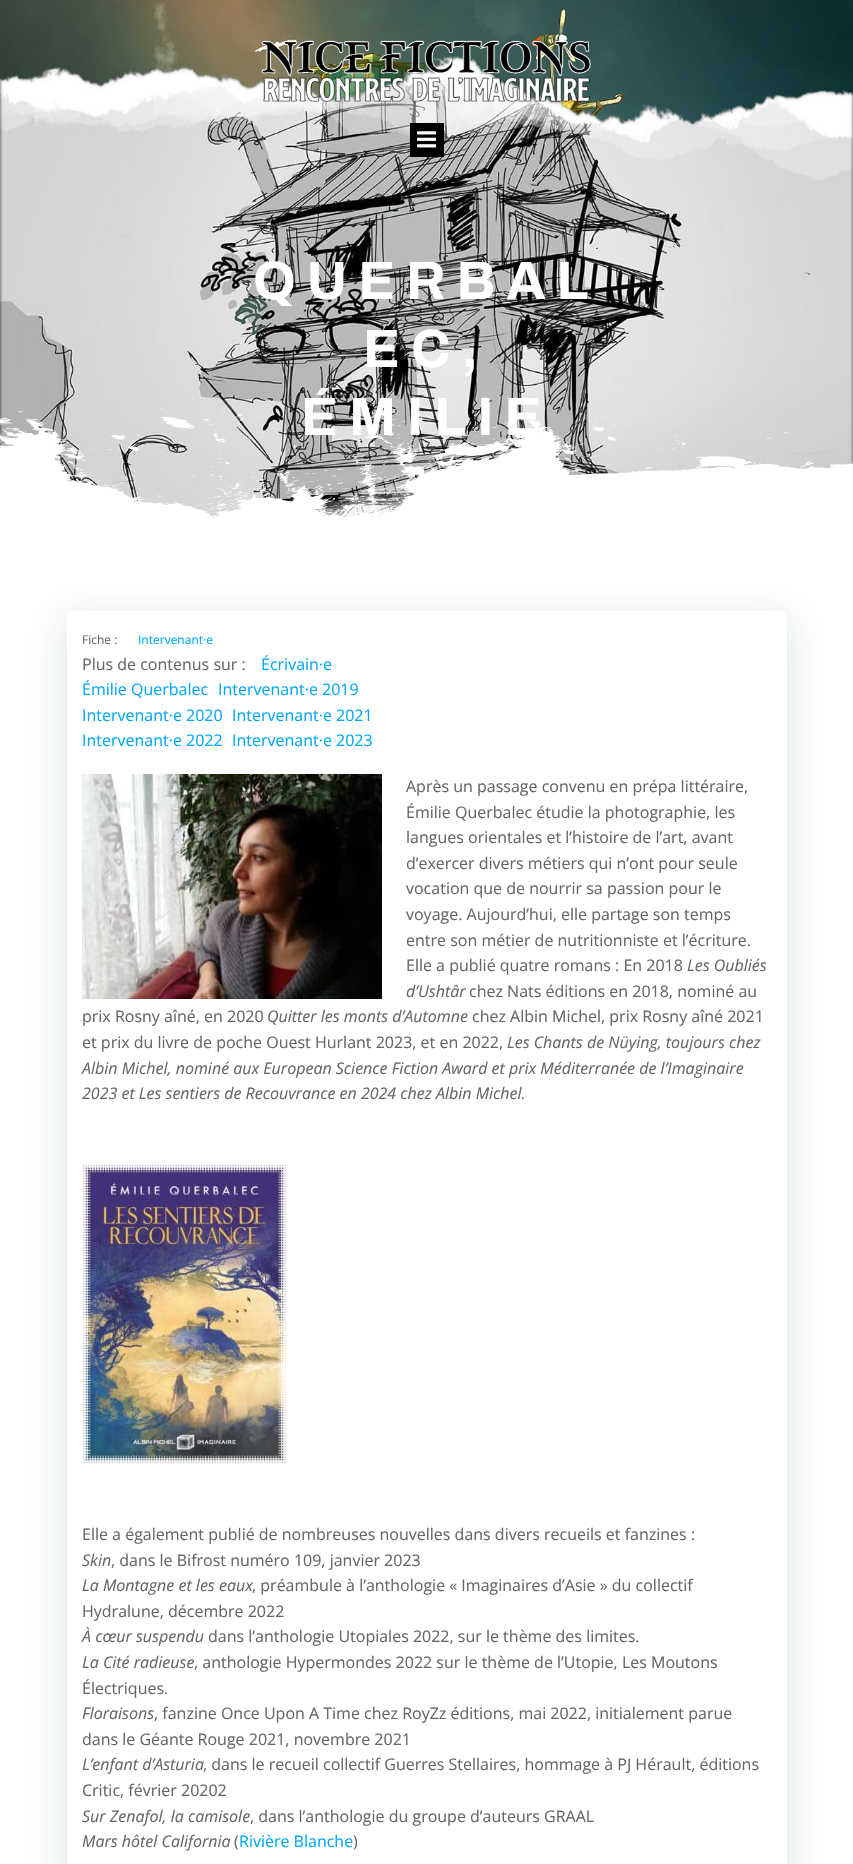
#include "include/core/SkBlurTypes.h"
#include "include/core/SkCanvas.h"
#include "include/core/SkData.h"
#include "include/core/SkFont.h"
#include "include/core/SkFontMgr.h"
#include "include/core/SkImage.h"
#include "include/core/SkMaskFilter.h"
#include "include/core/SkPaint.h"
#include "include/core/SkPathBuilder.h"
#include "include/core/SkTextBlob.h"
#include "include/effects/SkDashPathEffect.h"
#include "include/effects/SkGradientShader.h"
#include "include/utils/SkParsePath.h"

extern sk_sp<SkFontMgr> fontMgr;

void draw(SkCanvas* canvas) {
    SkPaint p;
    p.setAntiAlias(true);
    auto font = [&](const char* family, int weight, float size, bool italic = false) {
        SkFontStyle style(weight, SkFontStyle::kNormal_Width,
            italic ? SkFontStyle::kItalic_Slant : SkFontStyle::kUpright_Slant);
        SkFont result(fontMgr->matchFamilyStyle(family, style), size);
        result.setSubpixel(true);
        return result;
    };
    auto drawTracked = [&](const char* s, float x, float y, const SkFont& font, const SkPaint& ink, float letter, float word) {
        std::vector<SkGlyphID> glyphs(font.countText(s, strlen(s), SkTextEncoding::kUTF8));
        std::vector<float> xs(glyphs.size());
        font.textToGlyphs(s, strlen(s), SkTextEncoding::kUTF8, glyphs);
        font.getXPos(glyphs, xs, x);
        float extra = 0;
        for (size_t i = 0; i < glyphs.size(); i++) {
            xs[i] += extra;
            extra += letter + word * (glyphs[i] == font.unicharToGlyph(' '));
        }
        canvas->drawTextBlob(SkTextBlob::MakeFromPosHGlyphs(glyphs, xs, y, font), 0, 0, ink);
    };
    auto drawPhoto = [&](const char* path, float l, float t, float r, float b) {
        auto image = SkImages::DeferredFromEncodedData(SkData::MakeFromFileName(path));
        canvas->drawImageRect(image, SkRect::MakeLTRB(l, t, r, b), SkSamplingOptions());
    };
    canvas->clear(0xFFFFFFFF);
    drawPhoto("media/3.png", 0, 0, 853, 518);
    drawPhoto("media/1.png", 261, 40, 591, 102);
    p.setColor(0xFF000000);
    canvas->drawRect(SkRect::MakeLTRB(410, 123, 444, 157), p);
    drawPhoto("media/2.png", 417, 131, 436, 148);
    auto font1 = font("Archivo", 700, 54);
    p.setColor(0xFFFFFFFF);
    drawTracked("QUERBAL", 253, 299, font1, p, 11, 0);
    drawTracked("EC,", 363, 367, font1, p, 11, 0);
    drawPhoto("media/4.png", 0, 405, 853, 521);
    drawTracked("ÉMILIE", 301, 435, font1, p, 11, 0);
    p.setColor(0x2601334A);
    p.setMaskFilter(SkMaskFilter::MakeBlur(kNormal_SkBlurStyle, 20));
    canvas->drawRoundRect(SkRect::MakeLTRB(67, 621, 787, 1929), 5, 5, p);
    p.setMaskFilter(nullptr);
    p.setColor(0xFFFFFFFF);
    canvas->drawRoundRect(SkRect::MakeLTRB(67, 611, 787, 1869), 5, 5, p);
    auto font2 = font("Open Sans", 400, 12);
    p.setColor(0xFF666666);
    canvas->drawString("Fiche :", 82, 644, font2, p);
    p.setColor(0xFF03A9F4);
    canvas->drawString("Intervenant·e", 138, 644, font2, p);
    auto font3 = font("Open Sans", 400, 16);
    p.setColor(0xFF666666);
    canvas->drawString("Plus de contenus sur :", 82, 670, font3, p);
    p.setColor(0xFF03A9F4);
    {
        const struct { const char* s; float x, y; } items[] = {
            {"Écrivain·e", 261, 670},
            {"Émilie Querbalec", 82, 695},
            {"Intervenant·e 2019", 218, 695},
            {"Intervenant·e 2020", 82, 721},
            {"Intervenant·e 2021", 232, 721},
            {"Intervenant·e 2022", 82, 746},
            {"Intervenant·e 2023", 232, 746},
        };
        for (auto [s, x, y] : items) {
            canvas->drawString(s, x, y, font3, p);
        }
    }
    drawPhoto("media/5.png", 82, 774, 382, 999);
    p.setColor(0xFF666666);
    {
        const struct { const char* s; float x, y; } items[] = {
            {"Après un passage convenu en prépa littéraire,", 406, 792},
            {"Émilie Querbalec étudie la photographie, les", 406, 818},
            {"langues orientales et l’histoire de l’art, avant", 406, 843},
            {"d’exercer divers métiers qui n’ont pour seule", 406, 869},
            {"vocation que de nourrir sa passion pour le", 406, 894},
            {"voyage. Aujourd’hui, elle partage son temps", 406, 920},
            {"entre son métier de nutritionniste et l’écriture.", 406, 946},
            {"Elle a publié quatre romans : En 2018", 406, 971},
        };
        for (auto [s, x, y] : items) {
            canvas->drawString(s, x, y, font3, p);
        }
    }
    auto font4 = font("Open Sans", 400, 16, true);
    canvas->drawString("Les Oubliés", 687, 971, font4, p);
    canvas->drawString("d’Ushtâr", 406, 997, font4, p);
    canvas->drawString("chez Nats éditions en 2018, nominé au", 469, 997, font3, p);
    canvas->drawString("prix Rosny aîné, en 2020", 82, 1022, font3, p);
    canvas->drawString("Quitter les monts d’Automne", 267, 1022, font4, p);
    canvas->drawString("chez Albin Michel, prix Rosny aîné 2021", 472, 1022, font3, p);
    canvas->drawString("et prix du livre de poche Ouest Hurlant 2023, et en 2022,", 82, 1048, font3, p);
    {
        const struct { const char* s; float x, y; } items[] = {
            {"Les Chants de Nüying, toujours chez", 507, 1048},
            {"Albin Michel, nominé aux European Science Fiction Award et prix Méditerranée de l’Imaginaire", 82, 1074},
            {"2023 et Les sentiers de Recouvrance en 2024 chez Albin Michel.", 82, 1099},
        };
        for (auto [s, x, y] : items) {
            canvas->drawString(s, x, y, font4, p);
        }
    }
    drawPhoto("media/6.png", 82, 1164, 287, 1464);
    canvas->drawString("Elle a également publié de nombreuses nouvelles dans divers recueils et fanzines :", 82, 1540, font3, p);
    canvas->drawString("Skin", 82, 1566, font4, p);
    canvas->drawString(", dans le Bifrost numéro 109, janvier 2023", 111, 1566, font3, p);
    canvas->drawString("La Montagne et les eaux", 82, 1591, font4, p);
    canvas->drawString(", préambule à l’anthologie « Imaginaires d’Asie » du collectif", 252, 1591, font3, p);
    canvas->drawString("Hydralune, décembre 2022", 82, 1617, font3, p);
    canvas->drawString("À cœur suspendu", 82, 1642, font4, p);
    canvas->drawString("dans l’anthologie Utopiales 2022, sur le thème des limites.", 208, 1642, font3, p);
    canvas->drawString("La Cité radieuse", 82, 1668, font4, p);
    canvas->drawString(", anthologie Hypermondes 2022 sur le thème de l’Utopie, Les Moutons", 194, 1668, font3, p);
    canvas->drawString("Électriques.", 82, 1694, font3, p);
    canvas->drawString("Floraisons", 82, 1719, font4, p);
    canvas->drawString(", fanzine Once Upon A Time chez RoyZz éditions, mai 2022, initialement parue", 154, 1719, font3, p);
    canvas->drawString("dans le Géante Rouge 2021, novembre 2021", 82, 1745, font3, p);
    canvas->drawString("L’enfant d’Asturia", 82, 1770, font4, p);
    canvas->drawString(", dans le recueil collectif Guerres Stellaires, hommage à PJ Hérault, éditions", 203, 1770, font3, p);
    canvas->drawString("Critic, février 20202", 82, 1796, font3, p);
    canvas->drawString("Sur Zenafol, la camisole", 82, 1822, font4, p);
    canvas->drawString(", dans l’anthologie du groupe d’auteurs GRAAL", 250, 1822, font3, p);
    canvas->drawString("Mars hôtel California", 82, 1847, font4, p);
    canvas->drawString("(", 234, 1847, font3, p);
    p.setColor(0xFF03A9F4);
    canvas->drawString("Rivière Blanche", 239, 1847, font3, p);
    p.setColor(0xFF666666);
    canvas->drawString(")", 353, 1847, font3, p);
}
